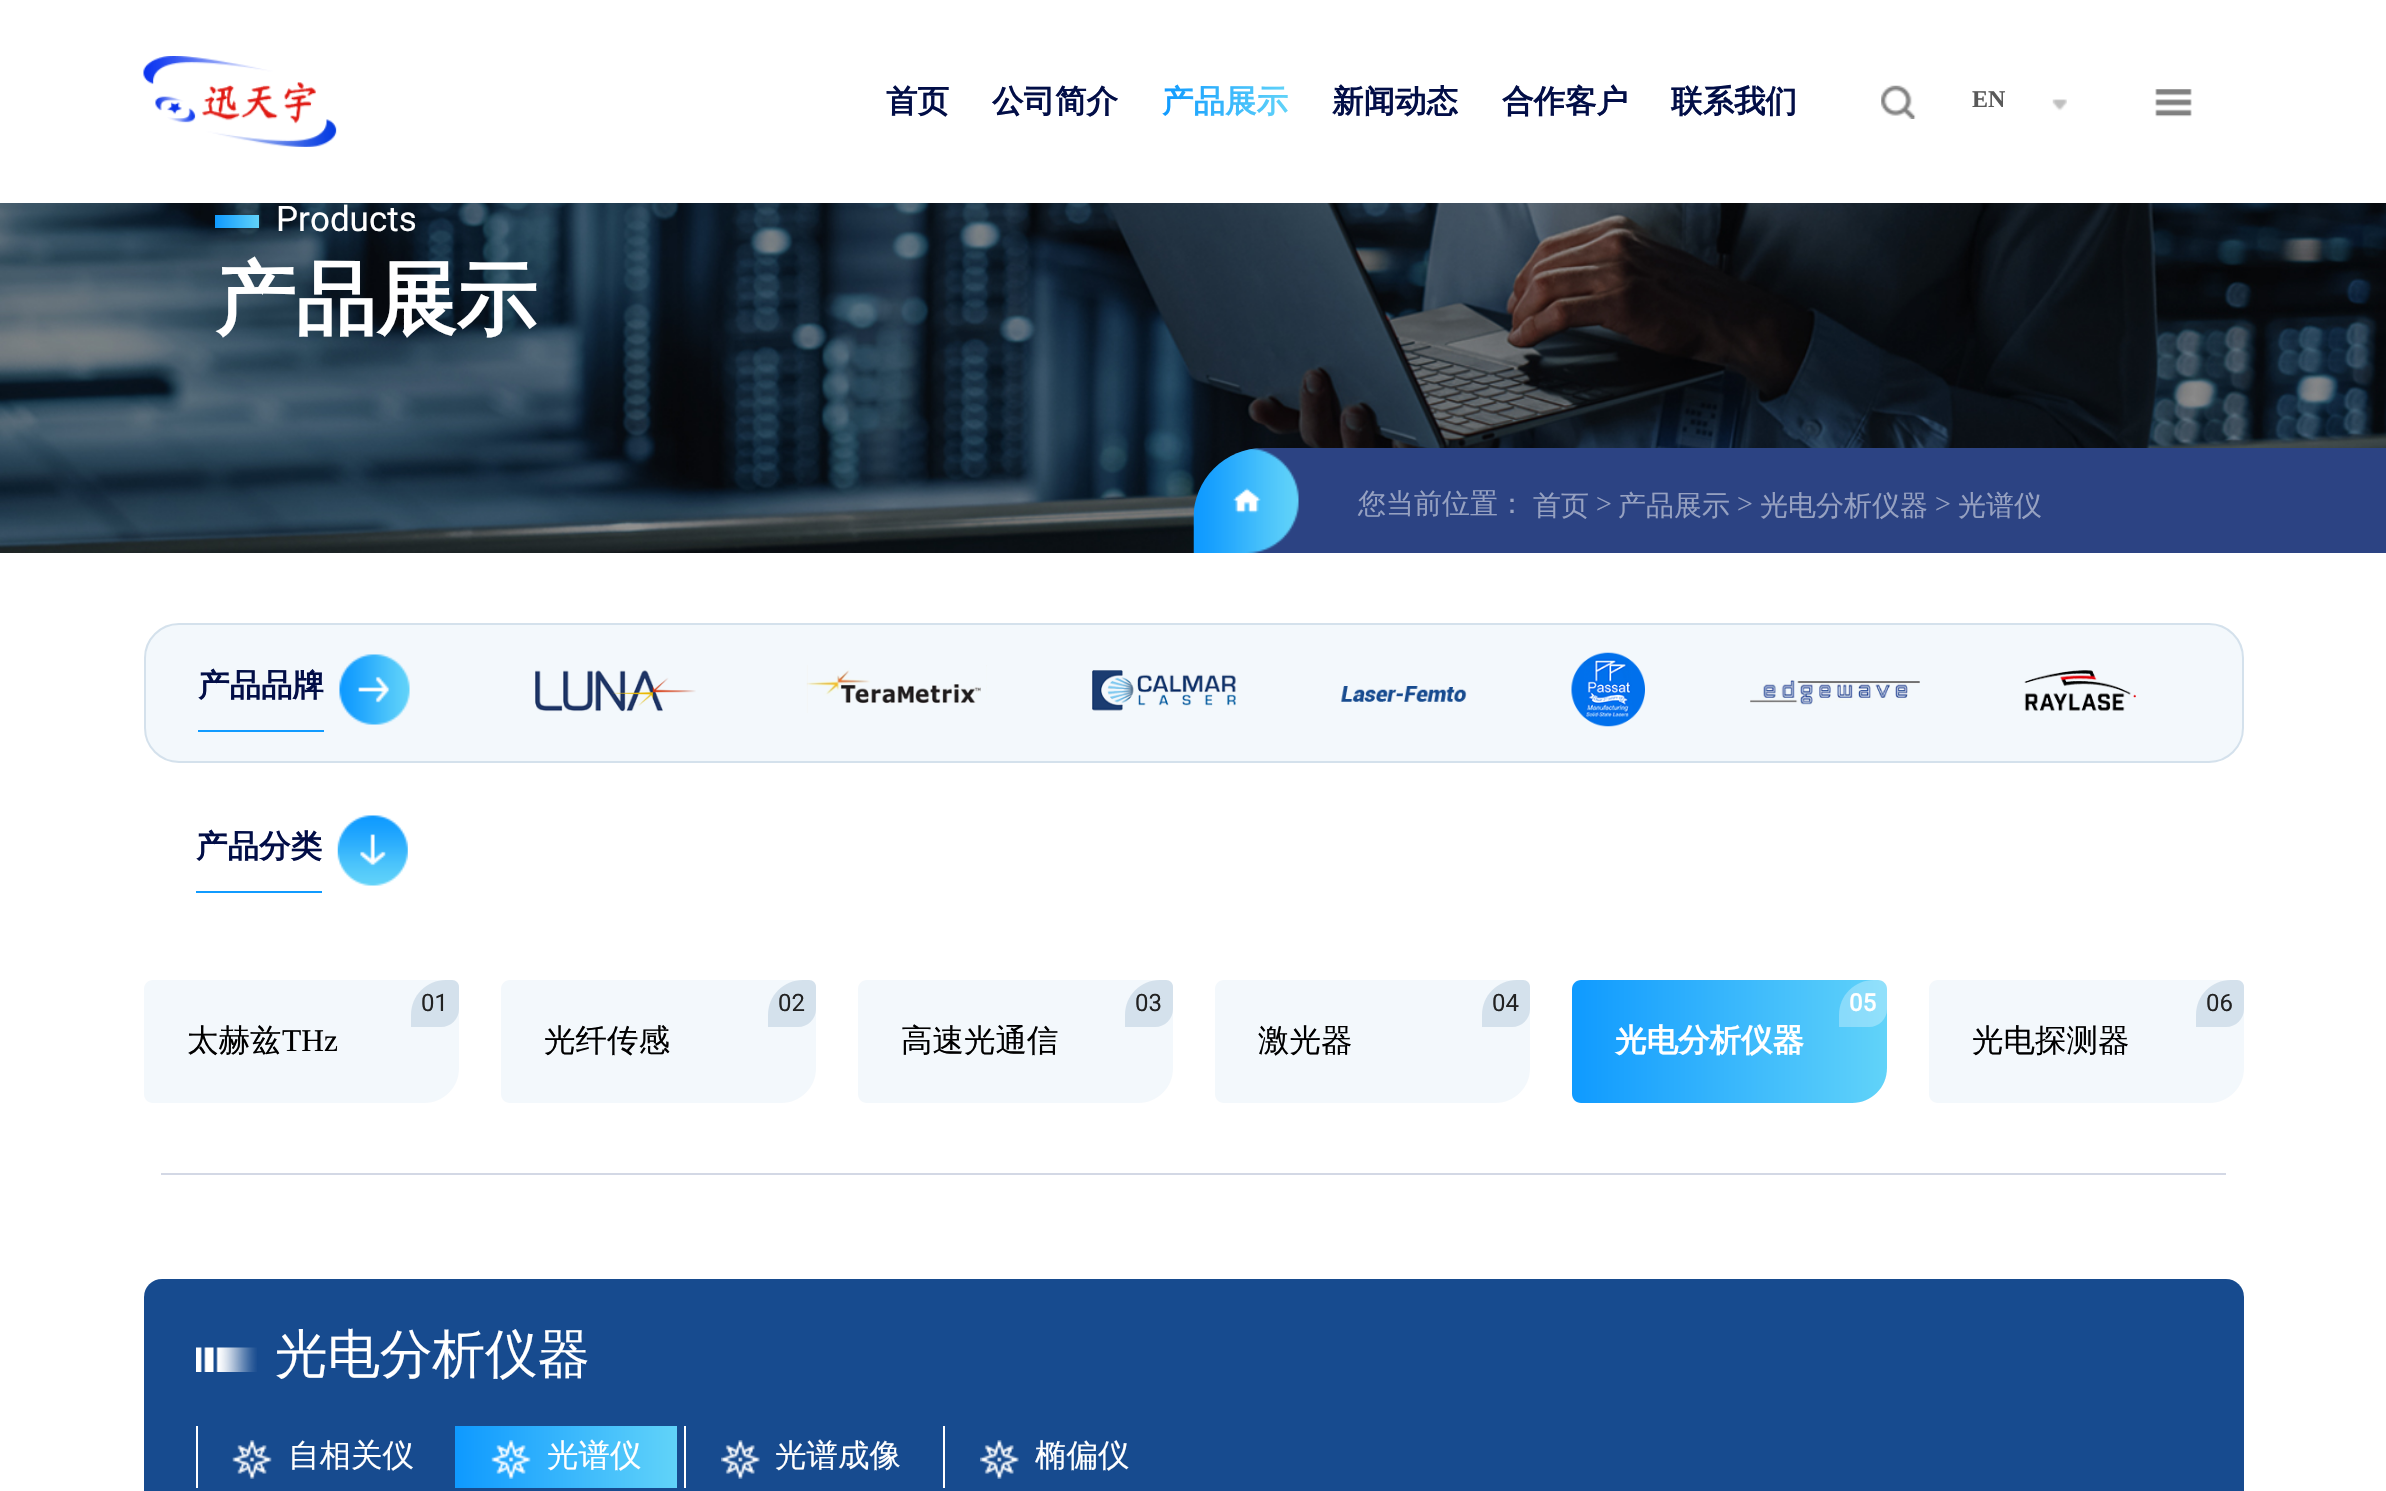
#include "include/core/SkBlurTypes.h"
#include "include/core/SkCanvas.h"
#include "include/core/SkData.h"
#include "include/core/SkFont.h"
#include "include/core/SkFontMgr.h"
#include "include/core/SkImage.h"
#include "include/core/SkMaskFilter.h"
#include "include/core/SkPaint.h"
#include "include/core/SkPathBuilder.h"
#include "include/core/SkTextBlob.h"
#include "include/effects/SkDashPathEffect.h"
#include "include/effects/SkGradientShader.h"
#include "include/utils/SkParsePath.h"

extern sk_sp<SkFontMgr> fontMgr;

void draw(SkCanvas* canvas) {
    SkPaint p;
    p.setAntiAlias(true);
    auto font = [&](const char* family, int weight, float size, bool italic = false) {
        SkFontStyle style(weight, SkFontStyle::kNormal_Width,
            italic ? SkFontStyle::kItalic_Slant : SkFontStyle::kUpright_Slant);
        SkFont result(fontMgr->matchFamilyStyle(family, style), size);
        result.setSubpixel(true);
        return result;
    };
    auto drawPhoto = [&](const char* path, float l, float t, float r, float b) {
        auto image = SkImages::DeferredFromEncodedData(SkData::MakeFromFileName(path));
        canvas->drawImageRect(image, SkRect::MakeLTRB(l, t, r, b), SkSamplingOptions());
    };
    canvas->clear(0xFFFFFFFF);
    drawPhoto("media/1.png", 143, 56, 337, 147);
    auto font1 = font("WenQuanYi Zen Hei", 700, 31.5f);
    p.setColor(0xFF020E47);
    canvas->drawString("首页", 886, 112, font1, p);
    canvas->drawString("公司简介", 992, 112, font1, p);
    {
        const SkColor colors[] = {0xFF0F9AFF, 0xFF61D3F9};
        const float stops[] = {0, 1};
        const SkPoint ends[] = {{1162, 102}, {1288, 102}};
        p.setShader(SkGradientShader::MakeLinear(ends, colors, stops, 2, SkTileMode::kClamp));
        p.setAlpha(255);
    }
    canvas->drawString("产品展示", 1162, 112, font1, p);
    p.setShader(nullptr);
    p.setColor(0xFF020E47);
    {
        const struct { const char* s; float x, y; } items[] = {
            {"新闻动态", 1332, 112},
            {"合作客户", 1502, 112},
            {"联系我们", 1671, 112},
        };
        for (auto [s, x, y] : items) {
            canvas->drawString(s, x, y, font1, p);
        }
    }
    drawPhoto("media/2.png", 1881, 85, 1916, 119);
    drawPhoto("media/3.png", 2052, 99, 2067, 111);
    auto font2 = font("Liberation Serif", 700, 24);
    p.setColor(0xFF595959);
    canvas->drawString("EN", 1972, 107, font2, p);
    drawPhoto("media/4.png", 2155, 89, 2192, 117);
    drawPhoto("media/5.png", 0, 203, 2386, 553);
    {
        const SkColor colors[] = {0xFF0F9AFF, 0xFF61D3F9};
        const float stops[] = {0, 1};
        const SkPoint ends[] = {{215, 221}, {259, 221}};
        p.setShader(SkGradientShader::MakeLinear(ends, colors, stops, 2, SkTileMode::kClamp));
        p.setAlpha(255);
    }
    canvas->drawRect(SkRect::MakeLTRB(215, 215, 259, 228), p);
    auto font3 = font("Roboto", 400, 35);
    p.setShader(nullptr);
    p.setColor(0xFFFFFFFF);
    canvas->drawString("Products", 276, 231, font3, p);
    auto font4 = font("WenQuanYi Zen Hei", 700, 80.5f);
    canvas->drawString("产品展示", 215, 327, font4, p);
    p.setColor(0xFF2C4383);
    canvas->drawPath(SkPathBuilder().moveTo(1264, 448).lineTo(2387, 448).lineTo(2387, 553).lineTo(1194, 553).lineTo(1194, 518).cubicTo(1194, 479.5f, 1225.5f, 448, 1264, 448).close().detach(), p);
    drawPhoto("media/6.png", 1193, 448, 1299, 553);
    auto font5 = font("WenQuanYi Zen Hei", 500, 28);
    p.setColor(0xFF96A1C1);
    canvas->drawString("您当前位置：", 1358, 513, font5, p);
    canvas->drawString("首页", 1533, 515, font5, p);
    auto font6 = font("Liberation Serif", 400, 28);
    canvas->drawString(">", 1596, 513, font6, p);
    canvas->drawString("产品展示", 1618, 515, font5, p);
    canvas->drawString(">", 1737, 513, font6, p);
    canvas->drawString("光电分析仪器", 1760, 515, font5, p);
    canvas->drawString(">", 1935, 513, font6, p);
    canvas->drawString("光谱仪", 1958, 515, font5, p);
    p.setColor(0xFFF3F8FC);
    canvas->drawRoundRect(SkRect::MakeLTRB(145, 624, 2243, 762), 34, 34, p);
    p.setStyle(SkPaint::kStroke_Style);
    p.setStrokeWidth(2);
    p.setColor(0xFFD4E1EC);
    canvas->drawRoundRect(SkRect::MakeLTRB(145, 624, 2243, 762), 34, 34, p);
    p.setStyle(SkPaint::kFill_Style);
    p.setColor(0xFF109BFF);
    canvas->drawRect(SkRect::MakeLTRB(198, 730, 324, 732), p);
    p.setColor(0xFF020E47);
    canvas->drawString("产品品牌", 198, 696, font1, p);
    drawPhoto("media/7.png", 339, 654, 410, 725);
    drawPhoto("media/8.png", 535, 670, 696, 712);
    drawPhoto("media/9.png", 806, 665, 987, 713);
    drawPhoto("media/10.png", 1092, 670, 1236, 711);
    drawPhoto("media/11.png", 1340, 686, 1467, 702);
    drawPhoto("media/12.png", 1571, 652, 1645, 727);
    drawPhoto("media/13.png", 1750, 680, 1920, 705);
    drawPhoto("media/14.png", 2024, 670, 2136, 711);
    p.setColor(0xFF109BFF);
    canvas->drawRect(SkRect::MakeLTRB(196, 891, 322, 893), p);
    p.setColor(0xFF020E47);
    canvas->drawString("产品分类", 196, 857, font1, p);
    drawPhoto("media/15.png", 337, 815, 408, 886);
    p.setColor(0xFFF3F8FC);
    canvas->drawPath(SkPathBuilder().moveTo(153, 980).lineTo(450, 980).cubicTo(455, 980, 459, 984, 459, 989).lineTo(459, 1068).cubicTo(459, 1087.5f, 443.5f, 1103, 424, 1103).lineTo(153, 1103).cubicTo(148, 1103, 144, 1099, 144, 1094).lineTo(144, 989).cubicTo(144, 984, 148, 980, 153, 980).close().detach(), p);
    p.setColor(0xFFD4E1EC);
    canvas->drawPath(SkPathBuilder().moveTo(446, 980).lineTo(452, 980).cubicTo(456, 980, 459, 983, 459, 987).lineTo(459, 1009).cubicTo(459, 1019, 451, 1027, 441, 1027).lineTo(411, 1027).lineTo(411, 1015).cubicTo(411, 995.5f, 426.5f, 980, 446, 980).close().detach(), p);
    auto font7 = font("Roboto", 400, 24);
    p.setColor(0xFF222222);
    canvas->drawString("01", 421, 1011, font7, p);
    auto font8 = font("WenQuanYi Zen Hei", 500, 31.5f);
    p.setColor(0xFF000000);
    canvas->drawString("太赫兹", 187, 1051, font8, p);
    auto font9 = font("Liberation Serif", 400, 31.5f);
    canvas->drawString("THz", 282, 1051, font9, p);
    p.setColor(0xFFF3F8FC);
    canvas->drawPath(SkPathBuilder().moveTo(510, 980).lineTo(807, 980).cubicTo(812, 980, 816, 984, 816, 989).lineTo(816, 1068).cubicTo(816, 1087.5f, 800.5f, 1103, 781, 1103).lineTo(510, 1103).cubicTo(505, 1103, 501, 1099, 501, 1094).lineTo(501, 989).cubicTo(501, 984, 505, 980, 510, 980).close().detach(), p);
    p.setColor(0xFFD4E1EC);
    canvas->drawPath(SkPathBuilder().moveTo(803, 980).lineTo(809, 980).cubicTo(813, 980, 816, 983, 816, 987).lineTo(816, 1009).cubicTo(816, 1019, 808, 1027, 798, 1027).lineTo(768, 1027).lineTo(768, 1015).cubicTo(768, 995.5f, 783.5f, 980, 803, 980).close().detach(), p);
    p.setColor(0xFF222222);
    canvas->drawString("02", 778, 1011, font7, p);
    p.setColor(0xFF000000);
    canvas->drawString("光纤传感", 544, 1051, font8, p);
    p.setColor(0xFFF3F8FC);
    canvas->drawPath(SkPathBuilder().moveTo(867, 980).lineTo(1164, 980).cubicTo(1169, 980, 1173, 984, 1173, 989).lineTo(1173, 1068).cubicTo(1173, 1087.5f, 1157.5f, 1103, 1138, 1103).lineTo(867, 1103).cubicTo(862, 1103, 858, 1099, 858, 1094).lineTo(858, 989).cubicTo(858, 984, 862, 980, 867, 980).close().detach(), p);
    p.setColor(0xFFD4E1EC);
    canvas->drawPath(SkPathBuilder().moveTo(1160, 980).lineTo(1166, 980).cubicTo(1170, 980, 1173, 983, 1173, 987).lineTo(1173, 1009).cubicTo(1173, 1019, 1165, 1027, 1155, 1027).lineTo(1125, 1027).lineTo(1125, 1015).cubicTo(1125, 995.5f, 1140.5f, 980, 1160, 980).close().detach(), p);
    p.setColor(0xFF222222);
    canvas->drawString("03", 1135, 1011, font7, p);
    p.setColor(0xFF000000);
    canvas->drawString("高速光通信", 901, 1051, font8, p);
    p.setColor(0xFFF3F8FC);
    canvas->drawPath(SkPathBuilder().moveTo(1224, 980).lineTo(1521, 980).cubicTo(1526, 980, 1530, 984, 1530, 989).lineTo(1530, 1068).cubicTo(1530, 1087.5f, 1514.5f, 1103, 1495, 1103).lineTo(1224, 1103).cubicTo(1219, 1103, 1215, 1099, 1215, 1094).lineTo(1215, 989).cubicTo(1215, 984, 1219, 980, 1224, 980).close().detach(), p);
    p.setColor(0xFFD4E1EC);
    canvas->drawPath(SkPathBuilder().moveTo(1517, 980).lineTo(1523, 980).cubicTo(1527, 980, 1530, 983, 1530, 987).lineTo(1530, 1009).cubicTo(1530, 1019, 1522, 1027, 1512, 1027).lineTo(1482, 1027).lineTo(1482, 1015).cubicTo(1482, 995.5f, 1497.5f, 980, 1517, 980).close().detach(), p);
    p.setColor(0xFF222222);
    canvas->drawString("04", 1492, 1011, font7, p);
    p.setColor(0xFF000000);
    canvas->drawString("激光器", 1258, 1051, font8, p);
    {
        const SkColor colors[] = {0xFF0F9AFF, 0xFF61D3F9};
        const float stops[] = {0, 1};
        const SkPoint ends[] = {{1572, 1041}, {1887, 1041}};
        p.setShader(SkGradientShader::MakeLinear(ends, colors, stops, 2, SkTileMode::kClamp));
        p.setAlpha(255);
    }
    canvas->drawPath(SkPathBuilder().moveTo(1581, 980).lineTo(1878, 980).cubicTo(1883, 980, 1887, 984, 1887, 989).lineTo(1887, 1068).cubicTo(1887, 1087.5f, 1871.5f, 1103, 1852, 1103).lineTo(1581, 1103).cubicTo(1576, 1103, 1572, 1099, 1572, 1094).lineTo(1572, 989).cubicTo(1572, 984, 1576, 980, 1581, 980).close().detach(), p);
    p.setShader(nullptr);
    p.setColor(0x4DFFFFFF);
    canvas->drawPath(SkPathBuilder().moveTo(1874, 980).lineTo(1880, 980).cubicTo(1884, 980, 1887, 983, 1887, 987).lineTo(1887, 1009).cubicTo(1887, 1019, 1879, 1027, 1869, 1027).lineTo(1839, 1027).lineTo(1839, 1015).cubicTo(1839, 995.5f, 1854.5f, 980, 1874, 980).close().detach(), p);
    auto font10 = font("Roboto", 700, 24);
    p.setColor(0xFFFFFFFF);
    canvas->drawString("05", 1849, 1011, font10, p);
    canvas->drawString("光电分析仪器", 1615, 1051, font1, p);
    p.setColor(0xFFF3F8FC);
    canvas->drawPath(SkPathBuilder().moveTo(1938, 980).lineTo(2235, 980).cubicTo(2240, 980, 2244, 984, 2244, 989).lineTo(2244, 1068).cubicTo(2244, 1087.5f, 2228.5f, 1103, 2209, 1103).lineTo(1938, 1103).cubicTo(1933, 1103, 1929, 1099, 1929, 1094).lineTo(1929, 989).cubicTo(1929, 984, 1933, 980, 1938, 980).close().detach(), p);
    p.setColor(0xFFD4E1EC);
    canvas->drawPath(SkPathBuilder().moveTo(2231, 980).lineTo(2237, 980).cubicTo(2241, 980, 2244, 983, 2244, 987).lineTo(2244, 1009).cubicTo(2244, 1019, 2236, 1027, 2226, 1027).lineTo(2196, 1027).lineTo(2196, 1015).cubicTo(2196, 995.5f, 2211.5f, 980, 2231, 980).close().detach(), p);
    p.setColor(0xFF222222);
    canvas->drawString("06", 2206, 1011, font7, p);
    p.setColor(0xFF000000);
    canvas->drawString("光电探测器", 1972, 1051, font8, p);
    p.setColor(0xFFD3D8E5);
    canvas->drawRect(SkRect::MakeLTRB(161, 1173, 2226, 1175), p);
    p.setColor(0xFF174B8F);
    canvas->drawRoundRect(SkRect::MakeLTRB(144, 1279, 2244, 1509), 18, 18, p);
    drawPhoto("media/16.png", 196, 1347, 257, 1372);
    auto font11 = font("WenQuanYi Zen Hei", 500, 52.5f);
    p.setColor(0xFFFFFFFF);
    canvas->drawString("光电分析仪器", 275, 1372, font11, p);
    canvas->drawRect(SkRect::MakeLTRB(196, 1426, 198, 1488), p);
    drawPhoto("media/17.png", 232, 1440, 272, 1479);
    canvas->drawString("自相关仪", 288, 1466, font8, p);
    {
        const SkColor colors[] = {0xFF0F9AFF, 0xFF61D3F9};
        const float stops[] = {0, 1};
        const SkPoint ends[] = {{457, 1457}, {677, 1457}};
        p.setShader(SkGradientShader::MakeLinear(ends, colors, stops, 2, SkTileMode::kClamp));
        p.setAlpha(255);
    }
    canvas->drawRect(SkRect::MakeLTRB(457, 1426, 677, 1488), p);
    p.setShader(nullptr);
    p.setColor(0xFF0F9AFF);
    canvas->drawRect(SkRect::MakeLTRB(455, 1426, 457, 1488), p);
    drawPhoto("media/18.png", 491, 1440, 531, 1479);
    p.setColor(0xFFFFFFFF);
    canvas->drawString("光谱仪", 547, 1466, font8, p);
    canvas->drawRect(SkRect::MakeLTRB(684, 1426, 686, 1488), p);
    drawPhoto("media/19.png", 721, 1440, 760, 1479);
    canvas->drawString("光谱成像", 775, 1466, font8, p);
    canvas->drawRect(SkRect::MakeLTRB(943, 1426, 945, 1488), p);
    drawPhoto("media/19.png", 980, 1440, 1019, 1479);
    canvas->drawString("椭偏仪", 1035, 1466, font8, p);
}
